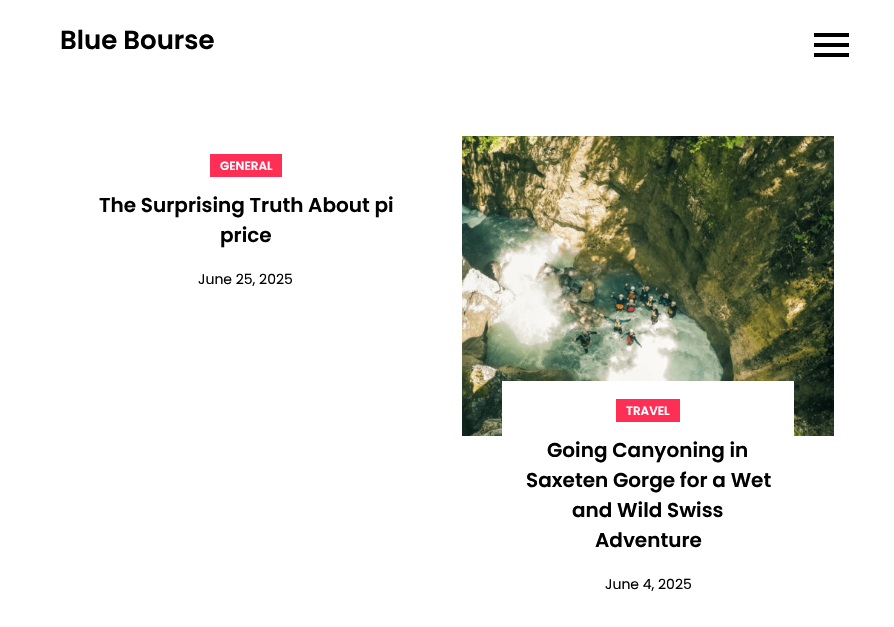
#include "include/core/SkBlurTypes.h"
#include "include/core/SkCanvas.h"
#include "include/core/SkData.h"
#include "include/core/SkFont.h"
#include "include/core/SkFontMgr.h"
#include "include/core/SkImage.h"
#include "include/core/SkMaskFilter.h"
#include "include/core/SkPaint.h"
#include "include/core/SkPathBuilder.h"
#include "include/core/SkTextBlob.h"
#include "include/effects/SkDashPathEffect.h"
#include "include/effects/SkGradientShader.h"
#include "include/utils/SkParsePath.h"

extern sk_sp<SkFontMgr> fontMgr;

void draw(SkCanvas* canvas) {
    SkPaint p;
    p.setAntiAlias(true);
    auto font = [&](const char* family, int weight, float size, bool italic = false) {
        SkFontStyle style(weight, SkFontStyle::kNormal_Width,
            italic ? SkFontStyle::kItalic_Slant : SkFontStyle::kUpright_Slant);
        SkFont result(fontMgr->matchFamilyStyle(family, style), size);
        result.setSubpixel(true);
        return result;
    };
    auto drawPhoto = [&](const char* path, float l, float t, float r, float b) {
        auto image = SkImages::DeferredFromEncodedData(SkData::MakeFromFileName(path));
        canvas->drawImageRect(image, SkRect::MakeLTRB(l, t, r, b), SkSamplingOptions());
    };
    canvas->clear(0xFFFFFFFF);
    auto font1 = font("Poppins", 600, 26);
    p.setColor(0xFF000000);
    canvas->drawString("Blue Bourse", 60, 49, font1, p);
    {
        const struct { float l, t, r, b; SkColor color; } items[] = {
            {814, 43, 849, 47, 0xFF000000},
            {814, 33, 849, 37, 0xFF000000},
            {814, 53, 849, 57, 0xFF000000},
            {210, 154, 282, 177, 0xFFFF2E55},
        };
        for (auto [l, t, r, b, color] : items) {
            p.setColor(color);
            canvas->drawRect(SkRect::MakeLTRB(l, t, r, b), p);
        }
    }
    auto font2 = font("Poppins", 600, 12);
    p.setColor(0xFFFFFFFF);
    canvas->drawString("GENERAL", 220, 170, font2, p);
    auto font3 = font("Poppins", 600, 20);
    p.setColor(0xFF000000);
    canvas->drawString("The Surprising Truth About pi", 99, 212, font3, p);
    canvas->drawString("price", 220, 242, font3, p);
    auto font4 = font("Poppins", 400, 14);
    canvas->drawString("June 25, 2025", 198, 284, font4, p);
    drawPhoto("media/1.png", 462, 136, 834, 436);
    p.setColor(0xFFFFFFFF);
    canvas->drawRect(SkRect::MakeLTRB(502, 381, 794, 436), p);
    p.setColor(0xFFFF2E55);
    canvas->drawRect(SkRect::MakeLTRB(616, 399, 680, 422), p);
    p.setColor(0xFFFFFFFF);
    canvas->drawString("TRAVEL", 626, 415, font2, p);
    p.setColor(0xFF000000);
    {
        const struct { const char* s; float x, y; } items[] = {
            {"Going Canyoning in", 547, 457},
            {"Saxeten Gorge for a Wet", 526, 487},
            {"and Wild Swiss", 572, 517},
            {"Adventure", 595, 547},
        };
        for (auto [s, x, y] : items) {
            canvas->drawString(s, x, y, font3, p);
        }
    }
    canvas->drawString("June 4, 2025", 605, 589, font4, p);
}
